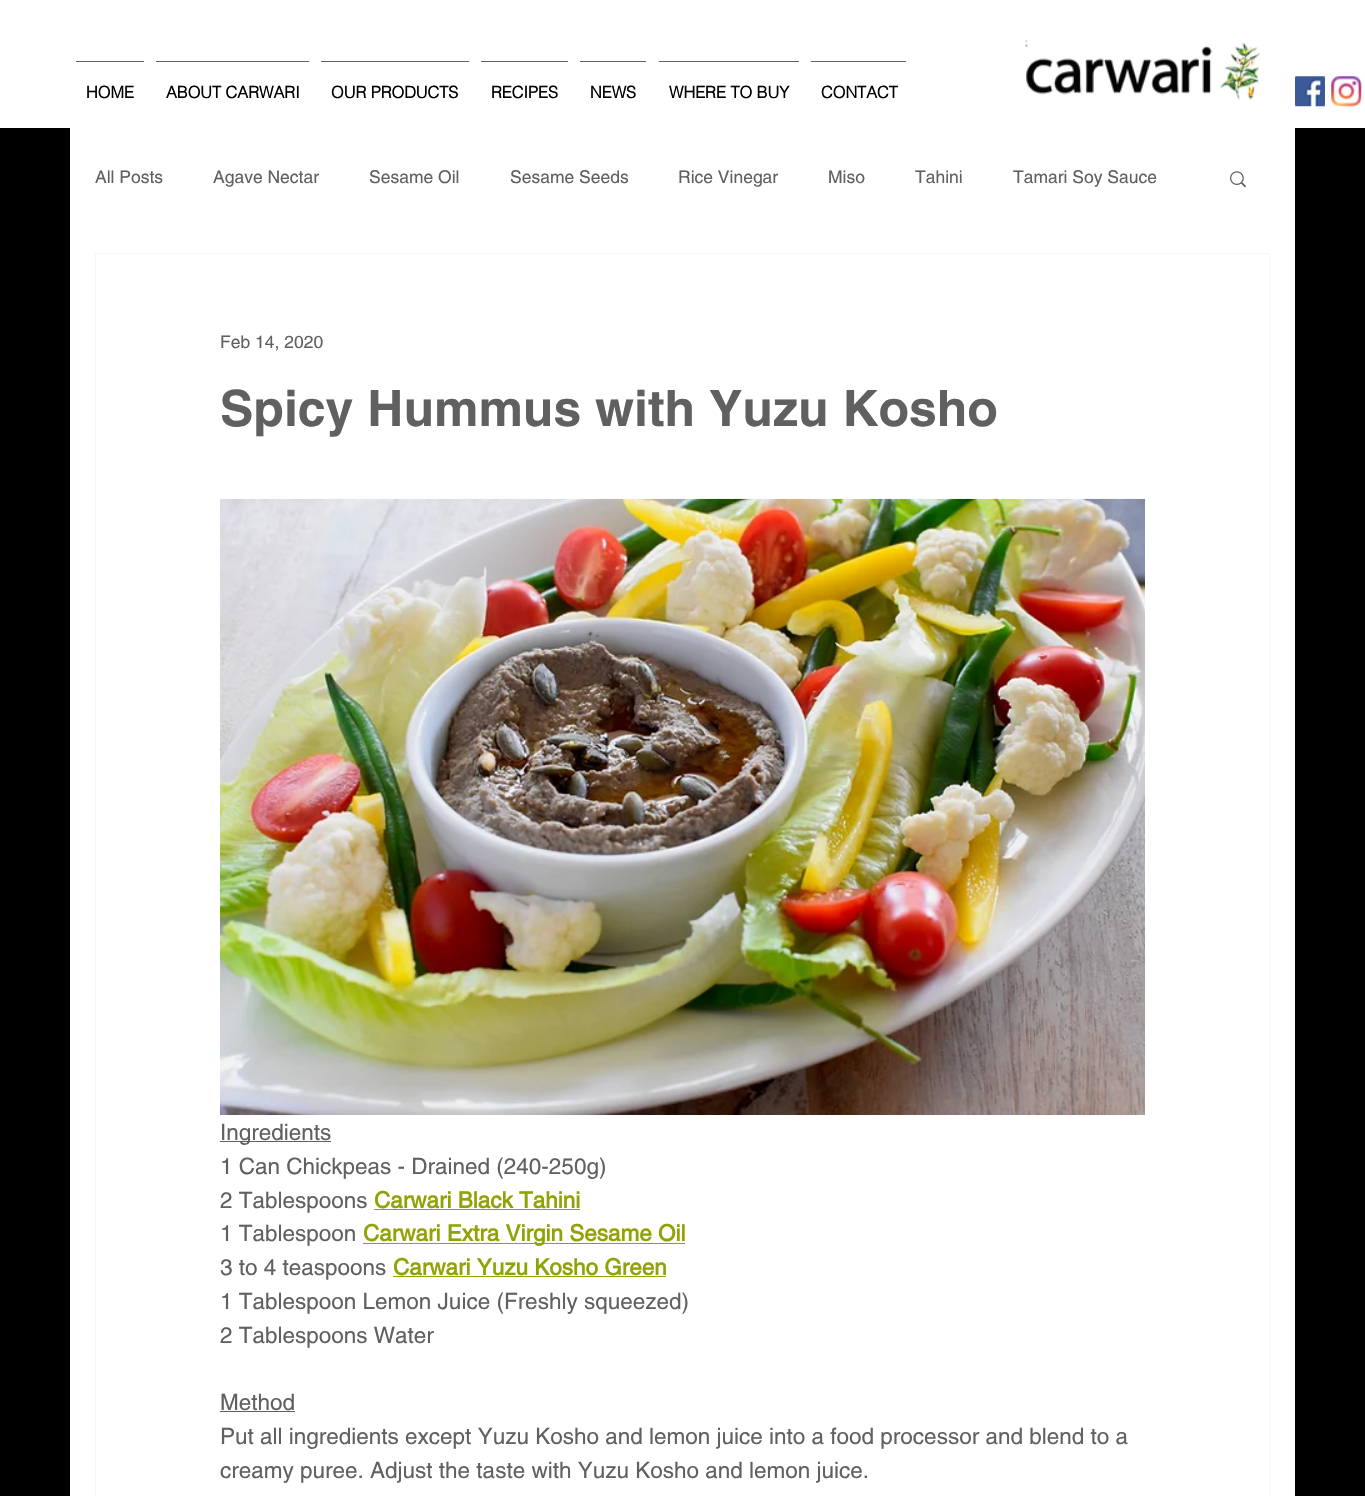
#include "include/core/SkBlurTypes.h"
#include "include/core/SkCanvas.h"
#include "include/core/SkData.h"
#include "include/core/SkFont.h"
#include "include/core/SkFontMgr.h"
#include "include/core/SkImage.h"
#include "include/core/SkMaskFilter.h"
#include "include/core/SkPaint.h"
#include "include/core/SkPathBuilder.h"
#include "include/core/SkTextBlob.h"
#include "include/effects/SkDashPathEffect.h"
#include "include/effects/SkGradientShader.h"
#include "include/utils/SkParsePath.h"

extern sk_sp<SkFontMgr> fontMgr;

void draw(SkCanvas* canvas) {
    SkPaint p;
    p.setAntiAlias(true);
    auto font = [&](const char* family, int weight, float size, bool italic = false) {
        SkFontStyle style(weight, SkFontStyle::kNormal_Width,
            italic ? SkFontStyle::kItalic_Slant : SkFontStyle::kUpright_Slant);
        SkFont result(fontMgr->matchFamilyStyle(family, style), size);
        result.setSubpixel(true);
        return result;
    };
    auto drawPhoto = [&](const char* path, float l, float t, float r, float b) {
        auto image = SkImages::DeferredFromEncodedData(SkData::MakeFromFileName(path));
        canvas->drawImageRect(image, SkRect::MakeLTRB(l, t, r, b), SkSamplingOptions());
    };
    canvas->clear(0xFF000000);
    p.setColor(0xFFFFFFFF);
    canvas->drawRect(SkRect::MakeLTRB(0, 0, 1365, 128), p);
    p.setColor(0xFF606060);
    canvas->drawRect(SkRect::MakeLTRB(76, 61, 144, 62), p);
    auto font1 = font("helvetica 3", 700, 16.25f);
    p.setColor(0xFF000000);
    canvas->drawString("HOME", 86, 98, font1, p);
    p.setColor(0xFF606060);
    canvas->drawRect(SkRect::MakeLTRB(156, 61, 309, 62), p);
    p.setColor(0xFF000000);
    canvas->drawString("ABOUT CARWARI", 166, 98, font1, p);
    p.setColor(0xFF606060);
    canvas->drawRect(SkRect::MakeLTRB(321, 61, 469, 62), p);
    p.setColor(0xFF000000);
    canvas->drawString("OUR PRODUCTS", 331, 98, font1, p);
    p.setColor(0xFF606060);
    canvas->drawRect(SkRect::MakeLTRB(481, 61, 568, 62), p);
    p.setColor(0xFF000000);
    canvas->drawString("RECIPES", 491, 98, font1, p);
    p.setColor(0xFF606060);
    canvas->drawRect(SkRect::MakeLTRB(580, 61, 646, 62), p);
    p.setColor(0xFF000000);
    canvas->drawString("NEWS", 590, 98, font1, p);
    p.setColor(0xFF606060);
    canvas->drawRect(SkRect::MakeLTRB(659, 61, 799, 62), p);
    p.setColor(0xFF000000);
    canvas->drawString("WHERE TO BUY", 669, 98, font1, p);
    p.setColor(0xFF606060);
    canvas->drawRect(SkRect::MakeLTRB(811, 61, 906, 62), p);
    p.setColor(0xFF000000);
    canvas->drawString("CONTACT", 821, 98, font1, p);
    drawPhoto("media/1.png", 1025, 39, 1260, 100);
    drawPhoto("media/2.png", 1295, 76, 1325, 107);
    drawPhoto("media/3.png", 1331, 76, 1362, 107);
    p.setColor(0xFFFFFFFF);
    canvas->drawRect(SkRect::MakeLTRB(70, 128, 1295, 1496), p);
    auto font2 = font("helvetica", 400, 17.5f);
    p.setColor(0xFF606060);
    {
        const struct { const char* s; float x, y; } items[] = {
            {"All Posts", 95, 183},
            {"Agave Nectar", 213, 183},
            {"Sesame Oil", 369, 183},
            {"Sesame Seeds", 510, 183},
            {"Rice Vinegar", 678, 183},
            {"Miso", 828, 183},
            {"Tahini", 915, 183},
            {"Tamari Soy Sauce", 1013, 183},
        };
        for (auto [s, x, y] : items) {
            canvas->drawString(s, x, y, font2, p);
        }
    }
    drawPhoto("media/4.png", 1230, 171, 1247, 188);
    p.setStyle(SkPaint::kStroke_Style);
    p.setStrokeWidth(1);
    p.setColor(0xFFF5F5F5);
    canvas->drawRect(SkRect::MakeLTRB(95.5f, 253.5f, 1269.5f, 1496.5f), p);
    p.setStyle(SkPaint::kFill_Style);
    p.setColor(0xFF606060);
    canvas->drawString("Feb 14, 2020", 220, 348, font2, p);
    auto font3 = font("helvetica", 700, 50);
    canvas->drawString("Spicy Hummus with Yuzu Kosho", 220, 426, font3, p);
    drawPhoto("media/5.png", 220, 498, 1145, 1115);
    canvas->drawRect(SkRect::MakeLTRB(220, 1141, 331, 1142), p);
    auto font4 = font("helvetica", 400, 22.5f);
    {
        const struct { const char* s; float x, y; } items[] = {
            {"Ingredients", 220, 1140},
            {"1 Can Chickpeas - Drained (240-250g)", 220, 1174},
            {"2 Tablespoons", 220, 1208},
        };
        for (auto [s, x, y] : items) {
            canvas->drawString(s, x, y, font4, p);
        }
    }
    auto font5 = font("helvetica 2", 700, 22.5f);
    p.setColor(0xFF91A304);
    canvas->drawString("Carwari Black Tahini", 374, 1208, font5, p);
    canvas->drawRect(SkRect::MakeLTRB(374, 1209, 580, 1210), p);
    p.setColor(0xFF606060);
    canvas->drawString("1 Tablespoon", 220, 1241, font4, p);
    p.setColor(0xFF91A304);
    canvas->drawRect(SkRect::MakeLTRB(363, 1243, 685, 1244), p);
    canvas->drawString("Carwari Extra Virgin Sesame Oil", 363, 1241, font5, p);
    p.setColor(0xFF606060);
    canvas->drawString("3 to 4 teaspoons", 220, 1275, font4, p);
    p.setColor(0xFF91A304);
    canvas->drawString("Carwari Yuzu Kosho Green", 393, 1275, font5, p);
    canvas->drawRect(SkRect::MakeLTRB(393, 1276, 666, 1277), p);
    p.setColor(0xFF606060);
    {
        const struct { const char* s; float x, y; } items[] = {
            {"1 Tablespoon Lemon Juice (Freshly squeezed)", 220, 1309},
            {"2 Tablespoons Water", 220, 1343},
            {"Method", 220, 1410},
        };
        for (auto [s, x, y] : items) {
            canvas->drawString(s, x, y, font4, p);
        }
    }
    canvas->drawRect(SkRect::MakeLTRB(220, 1411, 295, 1412), p);
    canvas->drawString("Put all ingredients except Yuzu Kosho and lemon juice into a food processor and blend to a", 220, 1444, font4, p);
    canvas->drawString("creamy puree. Adjust the taste with Yuzu Kosho and lemon juice.", 220, 1478, font4, p);
}
